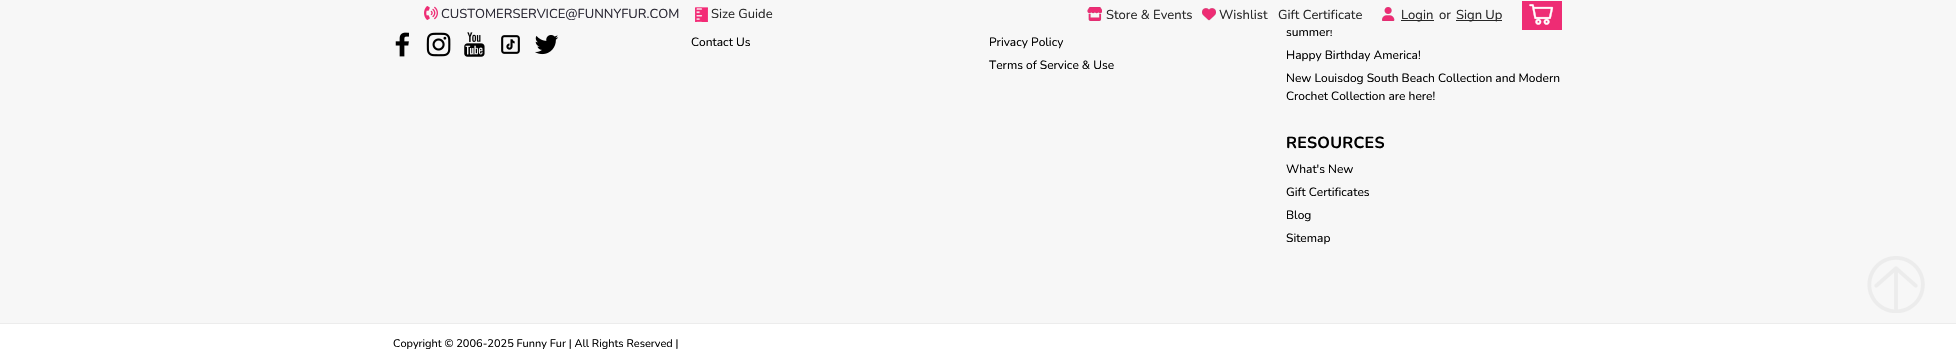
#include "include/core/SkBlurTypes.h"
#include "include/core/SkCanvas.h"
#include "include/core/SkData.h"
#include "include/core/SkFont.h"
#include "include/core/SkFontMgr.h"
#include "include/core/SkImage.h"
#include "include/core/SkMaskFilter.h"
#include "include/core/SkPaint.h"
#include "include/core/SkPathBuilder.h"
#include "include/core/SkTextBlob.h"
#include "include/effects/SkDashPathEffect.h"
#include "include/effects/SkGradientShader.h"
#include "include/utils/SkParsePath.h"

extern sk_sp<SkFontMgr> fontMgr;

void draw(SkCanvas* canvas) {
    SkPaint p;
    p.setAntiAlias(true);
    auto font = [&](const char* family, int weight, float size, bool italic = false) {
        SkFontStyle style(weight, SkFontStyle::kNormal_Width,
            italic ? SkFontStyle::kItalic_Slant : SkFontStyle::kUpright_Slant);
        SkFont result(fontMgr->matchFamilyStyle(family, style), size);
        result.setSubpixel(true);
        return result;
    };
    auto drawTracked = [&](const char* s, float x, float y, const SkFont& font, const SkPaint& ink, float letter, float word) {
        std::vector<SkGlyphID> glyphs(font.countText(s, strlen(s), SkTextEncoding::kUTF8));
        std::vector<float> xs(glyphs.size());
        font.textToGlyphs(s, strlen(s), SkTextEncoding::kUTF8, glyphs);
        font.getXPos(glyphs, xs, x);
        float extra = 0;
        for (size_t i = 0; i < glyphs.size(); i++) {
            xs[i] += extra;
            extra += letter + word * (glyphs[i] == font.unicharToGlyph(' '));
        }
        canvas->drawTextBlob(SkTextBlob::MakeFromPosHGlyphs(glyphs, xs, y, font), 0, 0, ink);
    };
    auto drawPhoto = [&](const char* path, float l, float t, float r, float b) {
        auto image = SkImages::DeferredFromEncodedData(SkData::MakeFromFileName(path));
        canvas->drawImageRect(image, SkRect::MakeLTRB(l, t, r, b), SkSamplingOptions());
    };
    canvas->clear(0xFFFFFFFF);
    p.setColor(0xFFF7F7F7);
    canvas->drawRect(SkRect::MakeLTRB(0, 30, 1956, 323), p);
    auto font1 = font("Nunito", 400, 12);
    p.setColor(0xFF000000);
    canvas->drawString("summer!", 1286, 36, font1, p);
    p.setColor(0xFFF7F7F7);
    canvas->drawRect(SkRect::MakeLTRB(0, 0, 1956, 30), p);
    drawPhoto("media/1.png", 424, 6, 438, 20);
    auto font2 = font("Nunito", 400, 13);
    p.setColor(0xFF2B2935);
    canvas->drawString("CUSTOMERSERVICE@FUNNYFUR.COM", 441, 18, font2, p);
    drawPhoto("media/2.png", 695, 7, 708, 22);
    p.setColor(0xFF282828);
    canvas->drawString("Size Guide", 711, 18, font2, p);
    drawPhoto("media/3.png", 1087, 7, 1102, 21);
    canvas->drawString("Store & Events", 1106, 19, font2, p);
    drawPhoto("media/4.png", 1202, 8, 1216, 21);
    canvas->drawString("Wishlist", 1219, 19, font2, p);
    canvas->drawString("Gift Certificate", 1278, 19, font2, p);
    drawPhoto("media/5.png", 1382, 7, 1395, 21);
    canvas->drawRect(SkRect::MakeLTRB(1401, 20, 1434, 21), p);
    canvas->drawString("Login", 1401, 19, font2, p);
    canvas->drawString("or", 1439, 19, font2, p);
    canvas->drawRect(SkRect::MakeLTRB(1456, 20, 1502, 21), p);
    canvas->drawString("Sign Up", 1456, 19, font2, p);
    p.setColor(0xFFEE2C74);
    canvas->drawRect(SkRect::MakeLTRB(1522, 1, 1562, 30), p);
    drawPhoto("media/6.png", 1529, 4, 1554, 25);
    drawPhoto("media/7.png", 395, 32, 409, 57);
    drawPhoto("media/8.png", 426, 32, 451, 57);
    drawPhoto("media/9.png", 464, 32, 485, 57);
    drawPhoto("media/10.png", 501, 35, 520, 54);
    drawPhoto("media/11.png", 535, 35, 559, 55);
    p.setColor(0xFF000000);
    {
        const struct { const char* s; float x, y; } items[] = {
            {"Contact Us", 691, 46},
            {"Privacy Policy", 989, 46},
            {"Terms of Service & Use", 989, 69},
            {"Happy Birthday America!", 1286, 59},
            {"New Louisdog South Beach Collection and Modern", 1286, 82},
            {"Crochet Collection are here!", 1286, 100},
        };
        for (auto [s, x, y] : items) {
            canvas->drawString(s, x, y, font1, p);
        }
    }
    auto font3 = font("Nunito", 700, 16);
    drawTracked("RESOURCES", 1286, 148, font3, p, 0.25f, 0);
    {
        const struct { const char* s; float x, y; } items[] = {
            {"What's New", 1286, 173},
            {"Gift Certificates", 1286, 196},
            {"Blog", 1286, 219},
            {"Sitemap", 1286, 242},
        };
        for (auto [s, x, y] : items) {
            canvas->drawString(s, x, y, font1, p);
        }
    }
    drawPhoto("media/12.png", 1867, 256, 1925, 313);
    p.setColor(0xFFECECEC);
    canvas->drawRect(SkRect::MakeLTRB(0, 323, 1956, 324), p);
    auto font4 = font("Nunito", 400, 11);
    p.setColor(0xFF000000);
    canvas->drawString("Copyright © 2006-2025 Funny Fur | All Rights Reserved |", 393, 347, font4, p);
}
